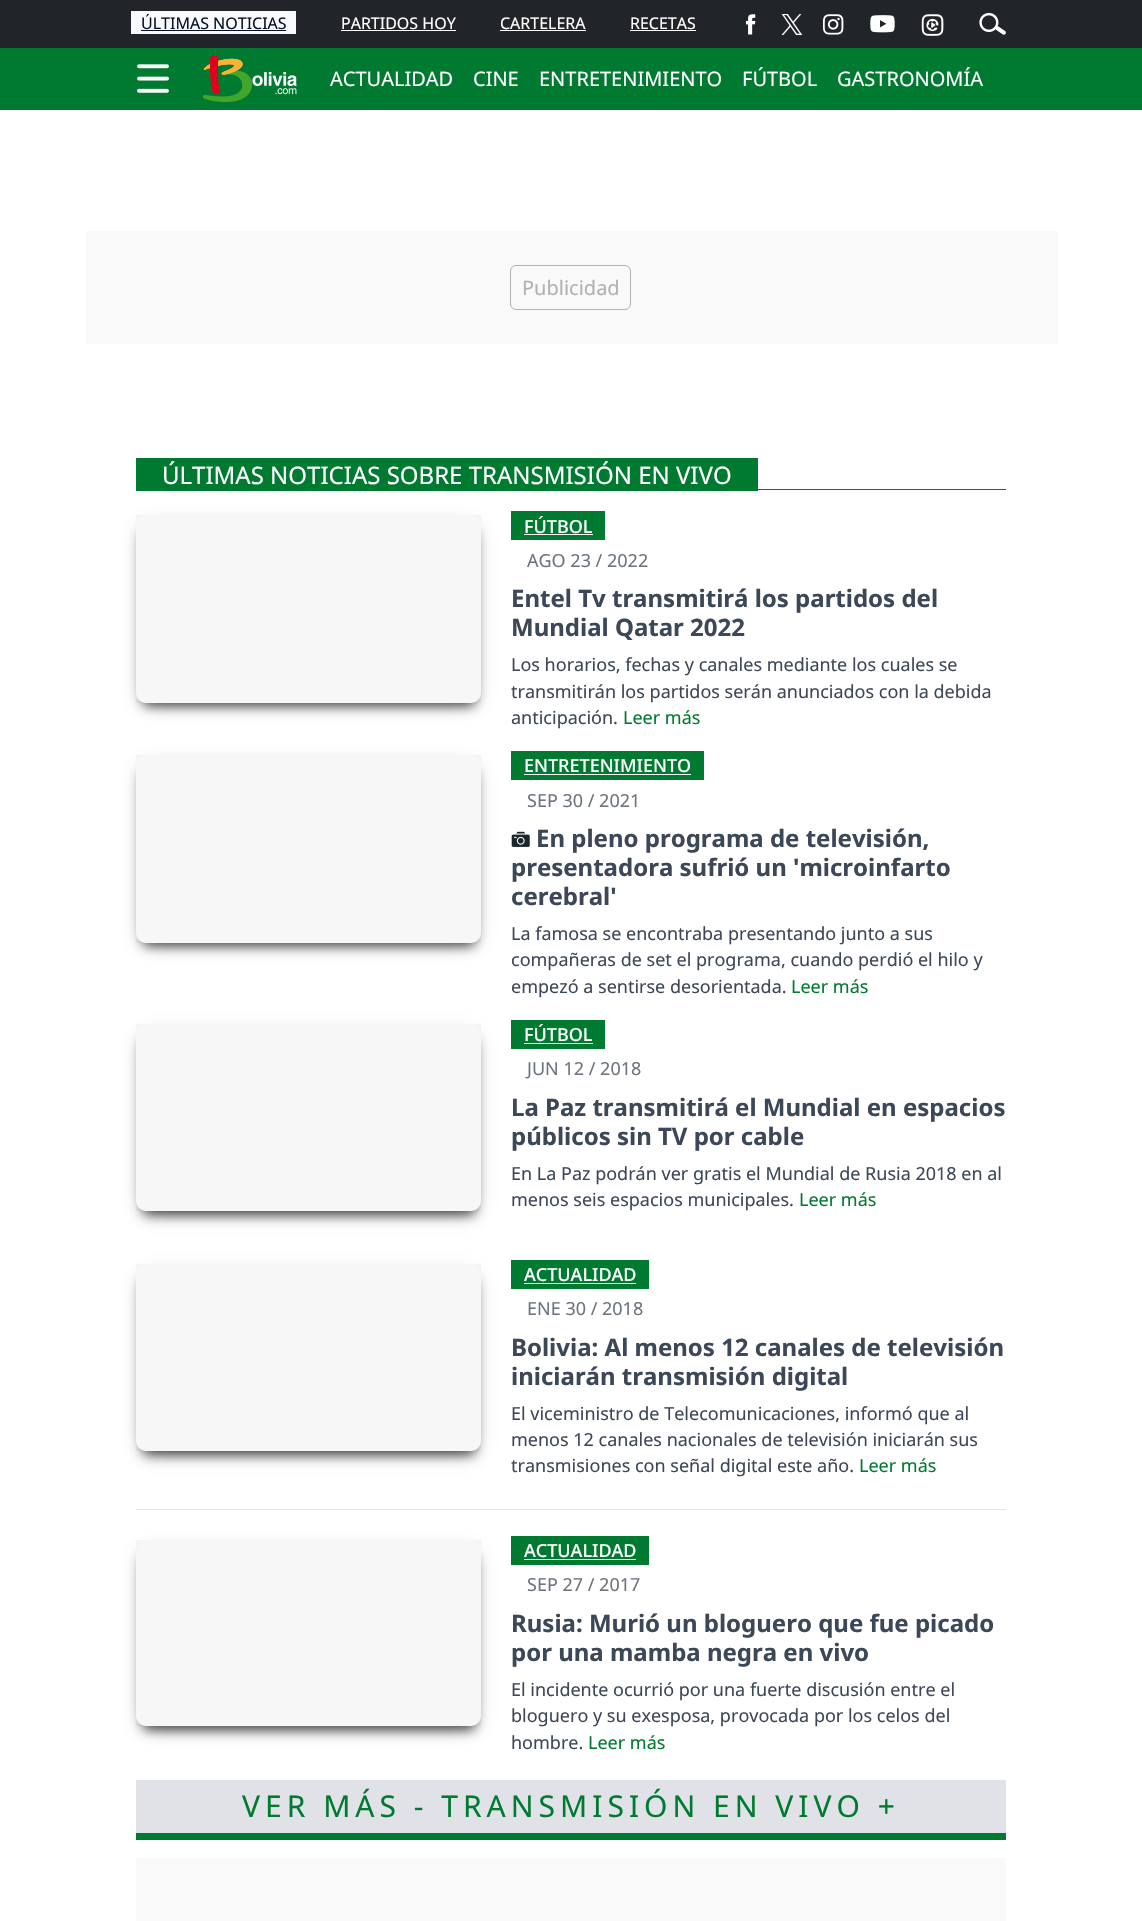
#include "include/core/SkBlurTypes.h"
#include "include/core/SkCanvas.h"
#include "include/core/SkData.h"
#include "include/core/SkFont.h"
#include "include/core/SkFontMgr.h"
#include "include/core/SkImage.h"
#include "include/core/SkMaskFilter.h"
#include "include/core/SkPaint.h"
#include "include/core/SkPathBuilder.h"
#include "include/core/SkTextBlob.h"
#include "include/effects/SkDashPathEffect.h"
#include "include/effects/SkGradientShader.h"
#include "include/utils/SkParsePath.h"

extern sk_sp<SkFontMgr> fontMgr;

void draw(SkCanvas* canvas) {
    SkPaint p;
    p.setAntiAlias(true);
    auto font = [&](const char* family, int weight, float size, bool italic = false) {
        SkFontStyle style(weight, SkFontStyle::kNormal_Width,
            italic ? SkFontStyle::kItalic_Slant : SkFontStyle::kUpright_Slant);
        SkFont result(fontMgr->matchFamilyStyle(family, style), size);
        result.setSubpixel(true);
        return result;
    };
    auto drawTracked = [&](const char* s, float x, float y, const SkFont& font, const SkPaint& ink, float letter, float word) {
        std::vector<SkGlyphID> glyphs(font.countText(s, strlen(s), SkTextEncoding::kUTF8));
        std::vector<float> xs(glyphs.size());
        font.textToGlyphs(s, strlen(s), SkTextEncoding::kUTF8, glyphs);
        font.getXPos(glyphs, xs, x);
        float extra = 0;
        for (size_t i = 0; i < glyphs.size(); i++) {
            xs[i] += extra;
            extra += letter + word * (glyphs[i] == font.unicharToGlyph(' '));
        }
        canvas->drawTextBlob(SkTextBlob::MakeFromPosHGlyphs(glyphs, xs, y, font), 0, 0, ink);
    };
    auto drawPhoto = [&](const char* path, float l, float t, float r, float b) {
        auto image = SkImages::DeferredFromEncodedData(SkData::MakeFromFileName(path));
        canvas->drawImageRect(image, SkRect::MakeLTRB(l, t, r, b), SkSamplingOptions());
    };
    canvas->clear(0xFFFFFFFF);
    p.setColor(0xFF212529);
    canvas->drawRect(SkRect::MakeLTRB(0, 0, 1142, 48), p);
    p.setColor(0xFFF8F9FA);
    canvas->drawRect(SkRect::MakeLTRB(131, 11, 296, 34), p);
    auto font1 = font("Noto Sans", 400, 16);
    p.setColor(0xFF081224);
    canvas->drawString("ÚLTIMAS NOTICIAS", 141, 29, font1, p);
    canvas->drawRect(SkRect::MakeLTRB(141, 30, 286, 31), p);
    p.setColor(0xFFFFFFFF);
    canvas->drawString("PARTIDOS HOY", 341, 29, font1, p);
    canvas->drawRect(SkRect::MakeLTRB(341, 30, 456, 31), p);
    canvas->drawString("CARTELERA", 500, 29, font1, p);
    canvas->drawRect(SkRect::MakeLTRB(500, 30, 586, 31), p);
    canvas->drawString("RECETAS", 630, 29, font1, p);
    canvas->drawRect(SkRect::MakeLTRB(630, 30, 696, 31), p);
    drawPhoto("media/1.png", 745, 14, 756, 35);
    drawPhoto("media/2.png", 781, 14, 803, 35);
    drawPhoto("media/3.png", 823, 14, 844, 35);
    drawPhoto("media/4.png", 870, 15, 895, 33);
    drawPhoto("media/5.png", 921, 14, 944, 36);
    drawPhoto("media/6.png", 979, 12, 1006, 35);
    p.setColor(0xFF007A31);
    canvas->drawRect(SkRect::MakeLTRB(0, 48, 1142, 110), p);
    drawPhoto("media/7.png", 137, 64, 169, 93);
    drawPhoto("media/8.png", 202, 55, 297, 102);
    auto font2 = font("Noto Sans", 400, 20);
    p.setColor(0xFFFFFFFF);
    {
        const struct { const char* s; float x, y; } items[] = {
            {"ACTUALIDAD", 330, 86},
            {"CINE", 473, 86},
            {"ENTRETENIMIENTO", 539, 86},
            {"FÚTBOL", 742, 86},
            {"GASTRONOMÍA", 837, 86},
        };
        for (auto [s, x, y] : items) {
            canvas->drawString(s, x, y, font2, p);
        }
    }
    p.setColor(0xFFF9F9F9);
    canvas->drawRect(SkRect::MakeLTRB(86, 231, 1058, 344), p);
    p.setStyle(SkPaint::kStroke_Style);
    p.setStrokeWidth(1);
    p.setColor(0xFFB1B1B1);
    canvas->drawRoundRect(SkRect::MakeLTRB(510.5f, 265.5f, 630.5f, 309.5f), 5.5f, 5.5f, p);
    p.setStyle(SkPaint::kFill_Style);
    canvas->drawString("Publicidad", 522, 295, font2, p);
    p.setColor(0xFF007A31);
    canvas->drawRect(SkRect::MakeLTRB(758, 489, 1006, 490), p);
    canvas->drawRect(SkRect::MakeLTRB(136, 458, 758, 491), p);
    auto font3 = font("Noto Sans", 400, 24);
    p.setColor(0xFFFFFFFF);
    canvas->drawString("ÚLTIMAS NOTICIAS SOBRE TRANSMISIÓN EN VIVO", 162, 484, font3, p);
    canvas->save();
    canvas->clipPath(SkPathBuilder(SkPathFillType::kEvenOdd).moveTo(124, 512).lineTo(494, 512).lineTo(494, 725).lineTo(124, 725).close().moveTo(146, 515).lineTo(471, 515).cubicTo(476.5f, 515, 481, 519.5f, 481, 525).lineTo(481, 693).cubicTo(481, 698.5f, 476.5f, 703, 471, 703).lineTo(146, 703).cubicTo(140.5f, 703, 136, 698.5f, 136, 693).lineTo(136, 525).cubicTo(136, 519.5f, 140.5f, 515, 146, 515).close().detach(), true);
    p.setColor(0x99000000);
    p.setMaskFilter(SkMaskFilter::MakeBlur(kNormal_SkBlurStyle, 6));
    canvas->drawRoundRect(SkRect::MakeLTRB(143, 531, 475, 706), 4, 4, p);
    p.setMaskFilter(nullptr);
    canvas->restore();
    canvas->save();
    canvas->clipPath(SkPathBuilder(SkPathFillType::kEvenOdd).moveTo(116, 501).lineTo(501, 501).lineTo(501, 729).lineTo(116, 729).close().moveTo(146, 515).lineTo(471, 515).cubicTo(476.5f, 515, 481, 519.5f, 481, 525).lineTo(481, 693).cubicTo(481, 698.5f, 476.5f, 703, 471, 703).lineTo(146, 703).cubicTo(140.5f, 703, 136, 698.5f, 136, 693).lineTo(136, 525).cubicTo(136, 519.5f, 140.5f, 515, 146, 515).close().detach(), true);
    p.setMaskFilter(SkMaskFilter::MakeBlur(kNormal_SkBlurStyle, 9.5f));
    canvas->drawRect(SkRect::MakeLTRB(146, 531, 471, 699), p);
    p.setMaskFilter(nullptr);
    canvas->restore();
    p.setColor(0x08000000);
    canvas->drawRect(SkRect::MakeLTRB(136, 515, 481, 703), p);
    p.setColor(0xFF007A31);
    canvas->drawRect(SkRect::MakeLTRB(511, 511, 605, 540), p);
    auto font4 = font("Noto Sans", 500, 18);
    p.setColor(0xFFFFFFFF);
    canvas->drawString("FÚTBOL", 524, 533, font4, p);
    canvas->drawRect(SkRect::MakeLTRB(524, 534, 593, 535), p);
    auto font5 = font("Noto Sans", 400, 18);
    p.setColor(0xFF6C757D);
    canvas->drawString("AGO 23 / 2022", 527, 567, font5, p);
    auto font6 = font("Noto Sans", 700, 24);
    p.setColor(0xFF3C4858);
    canvas->drawString("Entel Tv transmitirá los partidos del", 511, 607, font6, p);
    canvas->drawString("Mundial Qatar 2022", 511, 636, font6, p);
    {
        const struct { const char* s; float x, y; } items[] = {
            {"Los horarios, fechas y canales mediante los cuales se", 511, 671},
            {"transmitirán los partidos serán anunciados con la debida", 511, 698},
            {"anticipación.", 511, 724},
        };
        for (auto [s, x, y] : items) {
            canvas->drawString(s, x, y, font5, p);
        }
    }
    p.setColor(0xFF007A31);
    canvas->drawString("Leer más", 623, 724, font5, p);
    canvas->save();
    canvas->clipPath(SkPathBuilder(SkPathFillType::kEvenOdd).moveTo(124, 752).lineTo(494, 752).lineTo(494, 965).lineTo(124, 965).close().moveTo(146, 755).lineTo(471, 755).cubicTo(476.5f, 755, 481, 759.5f, 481, 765).lineTo(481, 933).cubicTo(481, 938.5f, 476.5f, 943, 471, 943).lineTo(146, 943).cubicTo(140.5f, 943, 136, 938.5f, 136, 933).lineTo(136, 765).cubicTo(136, 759.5f, 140.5f, 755, 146, 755).close().detach(), true);
    p.setColor(0x99000000);
    p.setMaskFilter(SkMaskFilter::MakeBlur(kNormal_SkBlurStyle, 6));
    canvas->drawRoundRect(SkRect::MakeLTRB(143, 771, 475, 946), 4, 4, p);
    p.setMaskFilter(nullptr);
    canvas->restore();
    canvas->save();
    canvas->clipPath(SkPathBuilder(SkPathFillType::kEvenOdd).moveTo(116, 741).lineTo(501, 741).lineTo(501, 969).lineTo(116, 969).close().moveTo(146, 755).lineTo(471, 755).cubicTo(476.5f, 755, 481, 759.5f, 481, 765).lineTo(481, 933).cubicTo(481, 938.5f, 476.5f, 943, 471, 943).lineTo(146, 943).cubicTo(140.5f, 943, 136, 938.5f, 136, 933).lineTo(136, 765).cubicTo(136, 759.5f, 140.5f, 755, 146, 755).close().detach(), true);
    p.setMaskFilter(SkMaskFilter::MakeBlur(kNormal_SkBlurStyle, 9.5f));
    canvas->drawRect(SkRect::MakeLTRB(146, 771, 471, 939), p);
    p.setMaskFilter(nullptr);
    canvas->restore();
    p.setColor(0x08000000);
    canvas->drawRect(SkRect::MakeLTRB(136, 755, 481, 943), p);
    p.setColor(0xFF007A31);
    canvas->drawRect(SkRect::MakeLTRB(511, 751, 704, 780), p);
    p.setColor(0xFFFFFFFF);
    canvas->drawString("ENTRETENIMIENTO", 524, 772, font4, p);
    canvas->drawRect(SkRect::MakeLTRB(524, 774, 691, 775), p);
    p.setColor(0xFF6C757D);
    canvas->drawString("SEP 30 / 2021", 527, 807, font5, p);
    drawPhoto("media/9.png", 511, 831, 530, 847);
    p.setColor(0xFF3C4858);
    {
        const struct { const char* s; float x, y; } items[] = {
            {"En pleno programa de televisión,", 536, 847},
            {"presentadora sufrió un 'microinfarto", 511, 876},
            {"cerebral'", 511, 905},
        };
        for (auto [s, x, y] : items) {
            canvas->drawString(s, x, y, font6, p);
        }
    }
    {
        const struct { const char* s; float x, y; } items[] = {
            {"La famosa se encontraba presentando junto a sus", 511, 940},
            {"compañeras de set el programa, cuando perdió el hilo y", 511, 966},
            {"empezó a sentirse desorientada.", 511, 993},
        };
        for (auto [s, x, y] : items) {
            canvas->drawString(s, x, y, font5, p);
        }
    }
    p.setColor(0xFF007A31);
    canvas->drawString("Leer más", 791, 993, font5, p);
    canvas->save();
    canvas->clipPath(SkPathBuilder(SkPathFillType::kEvenOdd).moveTo(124, 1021).lineTo(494, 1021).lineTo(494, 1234).lineTo(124, 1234).close().moveTo(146, 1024).lineTo(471, 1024).cubicTo(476.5f, 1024, 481, 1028.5f, 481, 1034).lineTo(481, 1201).cubicTo(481, 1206.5f, 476.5f, 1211, 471, 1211).lineTo(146, 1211).cubicTo(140.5f, 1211, 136, 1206.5f, 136, 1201).lineTo(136, 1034).cubicTo(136, 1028.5f, 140.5f, 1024, 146, 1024).close().detach(), true);
    p.setColor(0x99000000);
    p.setMaskFilter(SkMaskFilter::MakeBlur(kNormal_SkBlurStyle, 6));
    canvas->drawRoundRect(SkRect::MakeLTRB(143, 1040, 475, 1215), 4, 4, p);
    p.setMaskFilter(nullptr);
    canvas->restore();
    canvas->save();
    canvas->clipPath(SkPathBuilder(SkPathFillType::kEvenOdd).moveTo(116, 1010).lineTo(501, 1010).lineTo(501, 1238).lineTo(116, 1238).close().moveTo(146, 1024).lineTo(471, 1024).cubicTo(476.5f, 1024, 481, 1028.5f, 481, 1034).lineTo(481, 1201).cubicTo(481, 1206.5f, 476.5f, 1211, 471, 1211).lineTo(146, 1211).cubicTo(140.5f, 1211, 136, 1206.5f, 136, 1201).lineTo(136, 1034).cubicTo(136, 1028.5f, 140.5f, 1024, 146, 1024).close().detach(), true);
    p.setMaskFilter(SkMaskFilter::MakeBlur(kNormal_SkBlurStyle, 9.5f));
    canvas->drawRect(SkRect::MakeLTRB(146, 1040, 471, 1208), p);
    p.setMaskFilter(nullptr);
    canvas->restore();
    p.setColor(0x08000000);
    canvas->drawRect(SkRect::MakeLTRB(136, 1024, 481, 1211), p);
    p.setColor(0xFF007A31);
    canvas->drawRect(SkRect::MakeLTRB(511, 1020, 605, 1049), p);
    p.setColor(0xFFFFFFFF);
    canvas->drawString("FÚTBOL", 524, 1041, font4, p);
    canvas->drawRect(SkRect::MakeLTRB(524, 1043, 593, 1044), p);
    p.setColor(0xFF6C757D);
    canvas->drawString("JUN 12 / 2018", 527, 1075, font5, p);
    p.setColor(0xFF3C4858);
    canvas->drawString("La Paz transmitirá el Mundial en espacios", 511, 1116, font6, p);
    canvas->drawString("públicos sin TV por cable", 511, 1145, font6, p);
    canvas->drawString("En La Paz podrán ver gratis el Mundial de Rusia 2018 en al", 511, 1180, font5, p);
    canvas->drawString("menos seis espacios municipales.", 511, 1206, font5, p);
    p.setColor(0xFF007A31);
    canvas->drawString("Leer más", 799, 1206, font5, p);
    canvas->save();
    canvas->clipPath(SkPathBuilder(SkPathFillType::kEvenOdd).moveTo(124, 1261).lineTo(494, 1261).lineTo(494, 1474).lineTo(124, 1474).close().moveTo(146, 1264).lineTo(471, 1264).cubicTo(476.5f, 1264, 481, 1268.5f, 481, 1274).lineTo(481, 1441).cubicTo(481, 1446.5f, 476.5f, 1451, 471, 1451).lineTo(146, 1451).cubicTo(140.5f, 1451, 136, 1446.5f, 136, 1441).lineTo(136, 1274).cubicTo(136, 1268.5f, 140.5f, 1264, 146, 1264).close().detach(), true);
    p.setColor(0x99000000);
    p.setMaskFilter(SkMaskFilter::MakeBlur(kNormal_SkBlurStyle, 6));
    canvas->drawRoundRect(SkRect::MakeLTRB(143, 1280, 475, 1455), 4, 4, p);
    p.setMaskFilter(nullptr);
    canvas->restore();
    canvas->save();
    canvas->clipPath(SkPathBuilder(SkPathFillType::kEvenOdd).moveTo(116, 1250).lineTo(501, 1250).lineTo(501, 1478).lineTo(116, 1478).close().moveTo(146, 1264).lineTo(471, 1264).cubicTo(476.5f, 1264, 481, 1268.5f, 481, 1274).lineTo(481, 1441).cubicTo(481, 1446.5f, 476.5f, 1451, 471, 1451).lineTo(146, 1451).cubicTo(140.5f, 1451, 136, 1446.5f, 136, 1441).lineTo(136, 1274).cubicTo(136, 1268.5f, 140.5f, 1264, 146, 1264).close().detach(), true);
    p.setMaskFilter(SkMaskFilter::MakeBlur(kNormal_SkBlurStyle, 9.5f));
    canvas->drawRect(SkRect::MakeLTRB(146, 1280, 471, 1448), p);
    p.setMaskFilter(nullptr);
    canvas->restore();
    p.setColor(0x08000000);
    canvas->drawRect(SkRect::MakeLTRB(136, 1264, 481, 1451), p);
    p.setColor(0xFF007A31);
    canvas->drawRect(SkRect::MakeLTRB(511, 1260, 649, 1289), p);
    p.setColor(0xFFFFFFFF);
    canvas->drawString("ACTUALIDAD", 524, 1281, font4, p);
    canvas->drawRect(SkRect::MakeLTRB(524, 1283, 636, 1284), p);
    p.setColor(0xFF6C757D);
    canvas->drawString("ENE 30 / 2018", 527, 1315, font5, p);
    p.setColor(0xFF3C4858);
    canvas->drawString("Bolivia: Al menos 12 canales de televisión", 511, 1356, font6, p);
    canvas->drawString("iniciarán transmisión digital", 511, 1385, font6, p);
    {
        const struct { const char* s; float x, y; } items[] = {
            {"El viceministro de Telecomunicaciones, informó que al", 511, 1420},
            {"menos 12 canales nacionales de televisión iniciarán sus", 511, 1446},
            {"transmisiones con señal digital este año.", 511, 1472},
        };
        for (auto [s, x, y] : items) {
            canvas->drawString(s, x, y, font5, p);
        }
    }
    p.setColor(0xFF007A31);
    canvas->drawString("Leer más", 859, 1472, font5, p);
    p.setColor(0xFFE4E4E4);
    canvas->drawRect(SkRect::MakeLTRB(136, 1509, 1006, 1510), p);
    canvas->save();
    canvas->clipPath(SkPathBuilder(SkPathFillType::kEvenOdd).moveTo(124, 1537).lineTo(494, 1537).lineTo(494, 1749).lineTo(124, 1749).close().moveTo(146, 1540).lineTo(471, 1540).cubicTo(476.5f, 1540, 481, 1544.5f, 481, 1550).lineTo(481, 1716).cubicTo(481, 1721.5f, 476.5f, 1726, 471, 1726).lineTo(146, 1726).cubicTo(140.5f, 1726, 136, 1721.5f, 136, 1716).lineTo(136, 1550).cubicTo(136, 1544.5f, 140.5f, 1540, 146, 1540).close().detach(), true);
    p.setColor(0x99000000);
    p.setMaskFilter(SkMaskFilter::MakeBlur(kNormal_SkBlurStyle, 6));
    canvas->drawRoundRect(SkRect::MakeLTRB(143, 1556, 475, 1730), 4, 4, p);
    p.setMaskFilter(nullptr);
    canvas->restore();
    canvas->save();
    canvas->clipPath(SkPathBuilder(SkPathFillType::kEvenOdd).moveTo(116, 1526).lineTo(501, 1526).lineTo(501, 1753).lineTo(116, 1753).close().moveTo(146, 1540).lineTo(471, 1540).cubicTo(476.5f, 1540, 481, 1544.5f, 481, 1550).lineTo(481, 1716).cubicTo(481, 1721.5f, 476.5f, 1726, 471, 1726).lineTo(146, 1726).cubicTo(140.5f, 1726, 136, 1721.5f, 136, 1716).lineTo(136, 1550).cubicTo(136, 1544.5f, 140.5f, 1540, 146, 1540).close().detach(), true);
    p.setMaskFilter(SkMaskFilter::MakeBlur(kNormal_SkBlurStyle, 9.5f));
    canvas->drawRect(SkRect::MakeLTRB(146, 1556, 471, 1723), p);
    p.setMaskFilter(nullptr);
    canvas->restore();
    p.setColor(0x08000000);
    canvas->drawRect(SkRect::MakeLTRB(136, 1540, 481, 1726), p);
    p.setColor(0xFF007A31);
    canvas->drawRect(SkRect::MakeLTRB(511, 1536, 649, 1565), p);
    p.setColor(0xFFFFFFFF);
    canvas->drawString("ACTUALIDAD", 524, 1557, font4, p);
    canvas->drawRect(SkRect::MakeLTRB(524, 1559, 636, 1560), p);
    p.setColor(0xFF6C757D);
    canvas->drawString("SEP 27 / 2017", 527, 1591, font5, p);
    p.setColor(0xFF3C4858);
    canvas->drawString("Rusia: Murió un bloguero que fue picado", 511, 1632, font6, p);
    canvas->drawString("por una mamba negra en vivo", 511, 1661, font6, p);
    {
        const struct { const char* s; float x, y; } items[] = {
            {"El incidente ocurrió por una fuerte discusión entre el", 511, 1696},
            {"bloguero y su exesposa, provocada por los celos del", 511, 1722},
            {"hombre.", 511, 1749},
        };
        for (auto [s, x, y] : items) {
            canvas->drawString(s, x, y, font5, p);
        }
    }
    p.setColor(0xFF007A31);
    canvas->drawString("Leer más", 588, 1749, font5, p);
    p.setColor(0xFFE0E2E7);
    canvas->drawRect(SkRect::MakeLTRB(136, 1780, 1006, 1833), p);
    p.setColor(0xFF007A31);
    canvas->drawRect(SkRect::MakeLTRB(136, 1833, 1006, 1840), p);
    auto font7 = font("Noto Sans", 400, 30);
    drawTracked("VER MÁS - TRANSMISIÓN EN VIVO +", 242, 1817, font7, p, 5, 0);
    p.setColor(0xFFF9F9F9);
    canvas->drawRect(SkRect::MakeLTRB(136, 1858, 1006, 1921), p);
}
